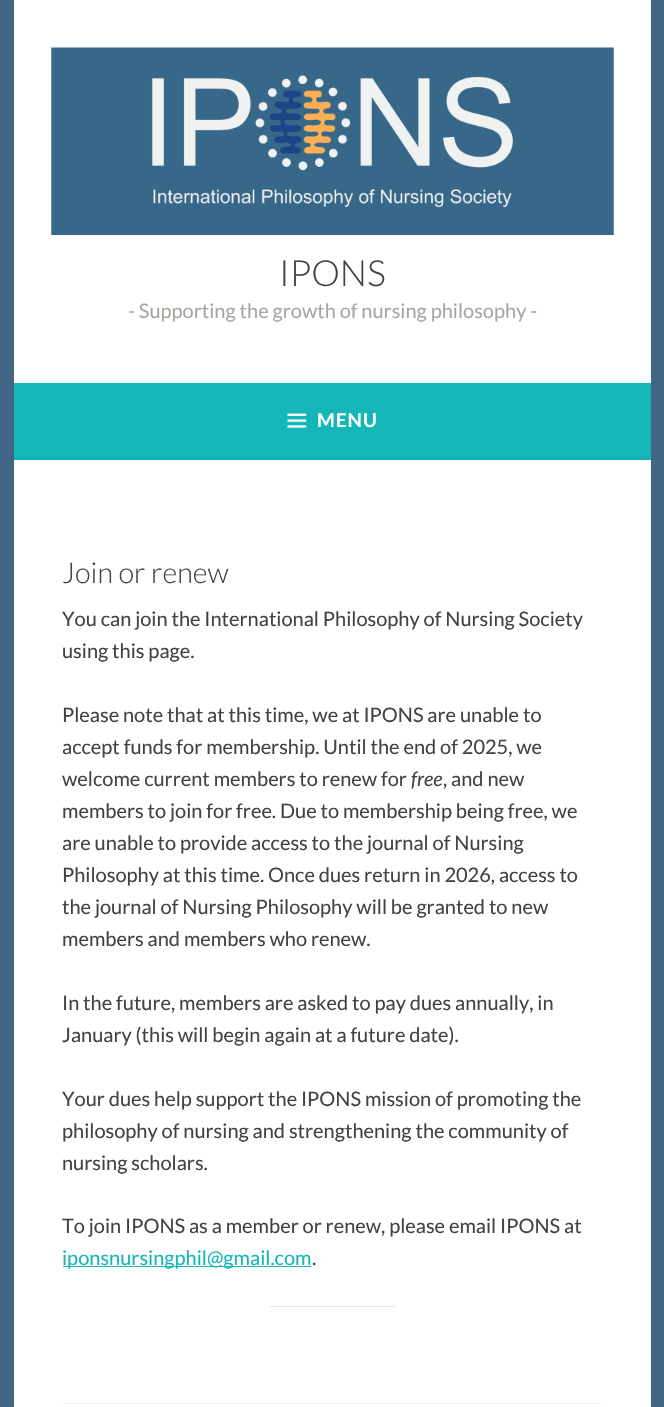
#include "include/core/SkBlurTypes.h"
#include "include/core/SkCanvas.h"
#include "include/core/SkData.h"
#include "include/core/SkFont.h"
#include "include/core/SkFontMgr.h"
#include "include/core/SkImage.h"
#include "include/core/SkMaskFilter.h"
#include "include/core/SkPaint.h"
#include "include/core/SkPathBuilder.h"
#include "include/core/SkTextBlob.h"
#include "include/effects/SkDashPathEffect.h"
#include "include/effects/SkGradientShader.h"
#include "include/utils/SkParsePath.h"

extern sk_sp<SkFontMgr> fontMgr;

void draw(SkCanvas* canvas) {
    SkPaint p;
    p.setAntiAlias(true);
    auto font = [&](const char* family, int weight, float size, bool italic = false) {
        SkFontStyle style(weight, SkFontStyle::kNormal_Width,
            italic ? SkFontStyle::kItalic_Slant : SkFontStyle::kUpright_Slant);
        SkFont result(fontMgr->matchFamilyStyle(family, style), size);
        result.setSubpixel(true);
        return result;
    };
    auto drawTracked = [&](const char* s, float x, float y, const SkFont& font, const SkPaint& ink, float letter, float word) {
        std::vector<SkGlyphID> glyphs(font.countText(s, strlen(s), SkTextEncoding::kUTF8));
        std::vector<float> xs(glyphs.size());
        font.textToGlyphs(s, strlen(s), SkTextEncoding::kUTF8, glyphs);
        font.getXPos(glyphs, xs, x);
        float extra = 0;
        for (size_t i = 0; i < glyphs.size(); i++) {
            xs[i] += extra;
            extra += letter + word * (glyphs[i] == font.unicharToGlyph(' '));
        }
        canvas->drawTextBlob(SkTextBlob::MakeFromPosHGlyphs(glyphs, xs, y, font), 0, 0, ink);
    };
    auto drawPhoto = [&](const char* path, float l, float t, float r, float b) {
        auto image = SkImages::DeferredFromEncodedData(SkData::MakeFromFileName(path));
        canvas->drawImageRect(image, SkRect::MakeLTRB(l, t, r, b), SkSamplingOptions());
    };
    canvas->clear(0xFF426786);
    p.setColor(0xFFFFFFFF);
    canvas->drawRect(SkRect::MakeLTRB(14, 0, 651, 383), p);
    drawPhoto("media/1.png", 51, 47, 614, 235);
    auto font1 = font("Lato", 300, 36);
    p.setColor(0xFF444340);
    canvas->drawString("IPONS", 279, 286, font1, p);
    auto font2 = font("Lato", 400, 20);
    p.setColor(0xFFA8A6A1);
    canvas->drawString("- Supporting the growth of nursing philosophy -", 128, 318, font2, p);
    p.setColor(0xFF15B6B8);
    canvas->drawRect(SkRect::MakeLTRB(14, 383, 651, 458), p);
    p.setColor(0xFF14B1B2);
    canvas->drawRect(SkRect::MakeLTRB(14, 458, 651, 460), p);
    drawPhoto("media/2.png", 287, 413, 307, 428);
    auto font3 = font("Lato", 700, 19);
    p.setColor(0xFFFFFFFF);
    drawTracked("MENU", 317, 427, font3, p, 1, 0);
    canvas->drawRect(SkRect::MakeLTRB(14, 460, 651, 1407), p);
    auto font4 = font("Lato", 300, 28.75f);
    p.setColor(0xFF444340);
    canvas->drawString("Join or renew", 62, 583, font4, p);
    {
        const struct { const char* s; float x, y; } items[] = {
            {"You can join the International Philosophy of Nursing Society", 62, 626},
            {"using this page.", 62, 658},
            {"Please note that at this time, we at IPONS are unable to", 62, 722},
            {"accept funds for membership. Until the end of 2025, we", 62, 754},
            {"welcome current members to renew for", 62, 786},
        };
        for (auto [s, x, y] : items) {
            canvas->drawString(s, x, y, font2, p);
        }
    }
    auto font5 = font("Lato", 400, 20, true);
    canvas->drawString("free", 411, 786, font5, p);
    {
        const struct { const char* s; float x, y; } items[] = {
            {", and new", 443, 786},
            {"members to join for free. Due to membership being free, we", 62, 818},
            {"are unable to provide access to the journal of Nursing", 62, 850},
            {"Philosophy at this time. Once dues return in 2026, access to", 62, 882},
            {"the journal of Nursing Philosophy will be granted to new", 62, 914},
            {"members and members who renew.", 62, 946},
            {"In the future, members are asked to pay dues annually, in", 62, 1010},
            {"January (this will begin again at a future date).", 62, 1042},
            {"Your dues help support the IPONS mission of promoting the", 62, 1106},
            {"philosophy of nursing and strengthening the community of", 62, 1138},
            {"nursing scholars.", 62, 1170},
            {"To join IPONS as a member or renew, please email IPONS at", 62, 1233},
        };
        for (auto [s, x, y] : items) {
            canvas->drawString(s, x, y, font2, p);
        }
    }
    p.setColor(0xFF15B6B8);
    canvas->drawRect(SkRect::MakeLTRB(63, 1266, 311, 1267), p);
    canvas->drawString("iponsnursingphil@gmail.com", 62, 1265, font2, p);
    p.setColor(0xFF444340);
    canvas->drawString(".", 312, 1265, font2, p);
    p.setColor(0xFFE6E6E6);
    canvas->drawRect(SkRect::MakeLTRB(270, 1306, 395, 1307), p);
    p.setColor(0xFFF2F2F2);
    canvas->drawRect(SkRect::MakeLTRB(63, 1403, 603, 1404), p);
}
